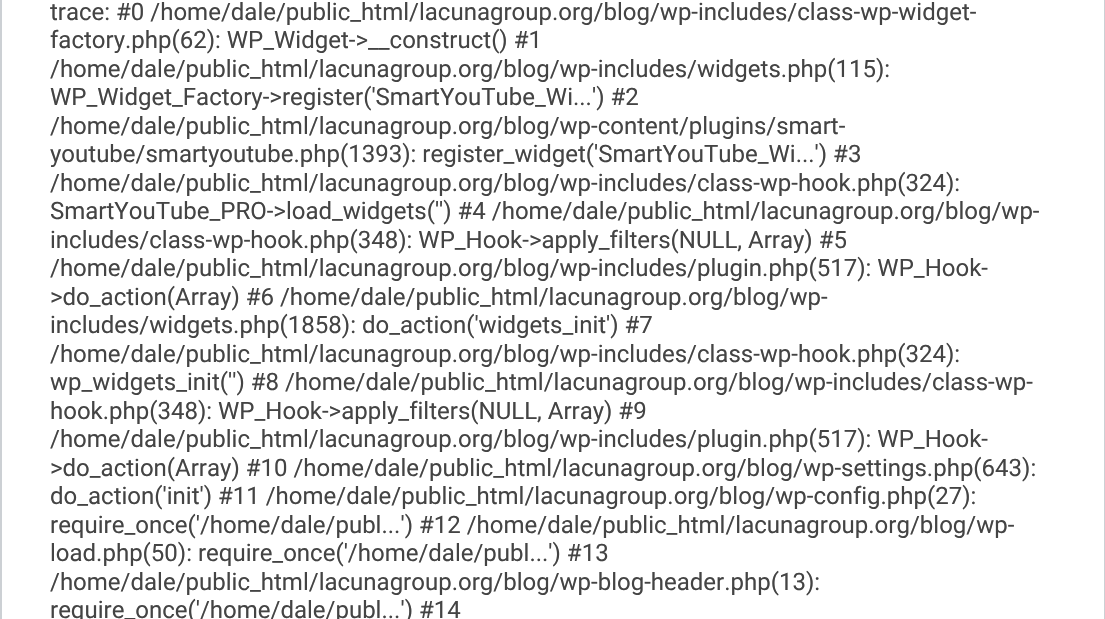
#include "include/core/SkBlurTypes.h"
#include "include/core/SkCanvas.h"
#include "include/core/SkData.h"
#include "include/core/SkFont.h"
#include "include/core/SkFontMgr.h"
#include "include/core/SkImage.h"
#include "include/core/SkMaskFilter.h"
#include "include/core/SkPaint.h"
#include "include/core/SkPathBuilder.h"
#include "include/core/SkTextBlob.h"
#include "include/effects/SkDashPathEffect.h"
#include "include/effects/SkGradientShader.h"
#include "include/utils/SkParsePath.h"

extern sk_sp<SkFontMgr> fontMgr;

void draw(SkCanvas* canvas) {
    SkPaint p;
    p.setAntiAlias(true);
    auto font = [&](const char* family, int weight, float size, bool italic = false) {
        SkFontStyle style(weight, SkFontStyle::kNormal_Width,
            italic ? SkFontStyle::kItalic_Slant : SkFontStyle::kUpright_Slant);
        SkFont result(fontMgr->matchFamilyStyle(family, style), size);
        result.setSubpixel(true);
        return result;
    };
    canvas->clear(0xFFFFFFFF);
    p.setStyle(SkPaint::kStroke_Style);
    p.setStrokeWidth(2);
    p.setColor(0xFFCCD0D4);
    canvas->drawRect(SkRect::MakeLTRB(1, -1, 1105, 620), p);
    auto font1 = font("Roboto", 400, 24);
    p.setStyle(SkPaint::kFill_Style);
    p.setColor(0xFF444444);
    {
        const struct { const char* s; float x, y; } items[] = {
            {"trace: #0 /home/dale/public_html/lacunagroup.org/blog/wp-includes/class-wp-widget-", 50, 20},
            {"factory.php(62): WP_Widget->__construct() #1", 50, 48},
            {"/home/dale/public_html/lacunagroup.org/blog/wp-includes/widgets.php(115):", 50, 77},
            {"WP_Widget_Factory->register('SmartYouTube_Wi...') #2", 50, 105},
            {"/home/dale/public_html/lacunagroup.org/blog/wp-content/plugins/smart-", 50, 134},
            {"youtube/smartyoutube.php(1393): register_widget('SmartYouTube_Wi...') #3", 50, 162},
            {"/home/dale/public_html/lacunagroup.org/blog/wp-includes/class-wp-hook.php(324):", 50, 191},
            {"SmartYouTube_PRO->load_widgets('') #4 /home/dale/public_html/lacunagroup.org/blog/wp-", 50, 219},
            {"includes/class-wp-hook.php(348): WP_Hook->apply_filters(NULL, Array) #5", 50, 248},
            {"/home/dale/public_html/lacunagroup.org/blog/wp-includes/plugin.php(517): WP_Hook-", 50, 276},
            {">do_action(Array) #6 /home/dale/public_html/lacunagroup.org/blog/wp-", 50, 305},
            {"includes/widgets.php(1858): do_action('widgets_init') #7", 50, 333},
            {"/home/dale/public_html/lacunagroup.org/blog/wp-includes/class-wp-hook.php(324):", 50, 362},
            {"wp_widgets_init('') #8 /home/dale/public_html/lacunagroup.org/blog/wp-includes/class-wp-", 50, 390},
            {"hook.php(348): WP_Hook->apply_filters(NULL, Array) #9", 50, 419},
            {"/home/dale/public_html/lacunagroup.org/blog/wp-includes/plugin.php(517): WP_Hook-", 50, 447},
            {">do_action(Array) #10 /home/dale/public_html/lacunagroup.org/blog/wp-settings.php(643):", 50, 476},
            {"do_action('init') #11 /home/dale/public_html/lacunagroup.org/blog/wp-config.php(27):", 50, 504},
            {"require_once('/home/dale/publ...') #12 /home/dale/public_html/lacunagroup.org/blog/wp-", 50, 533},
            {"load.php(50): require_once('/home/dale/publ...') #13", 50, 561},
            {"/home/dale/public_html/lacunagroup.org/blog/wp-blog-header.php(13):", 50, 590},
            {"require_once('/home/dale/publ...') #14", 50, 618},
        };
        for (auto [s, x, y] : items) {
            canvas->drawString(s, x, y, font1, p);
        }
    }
}
